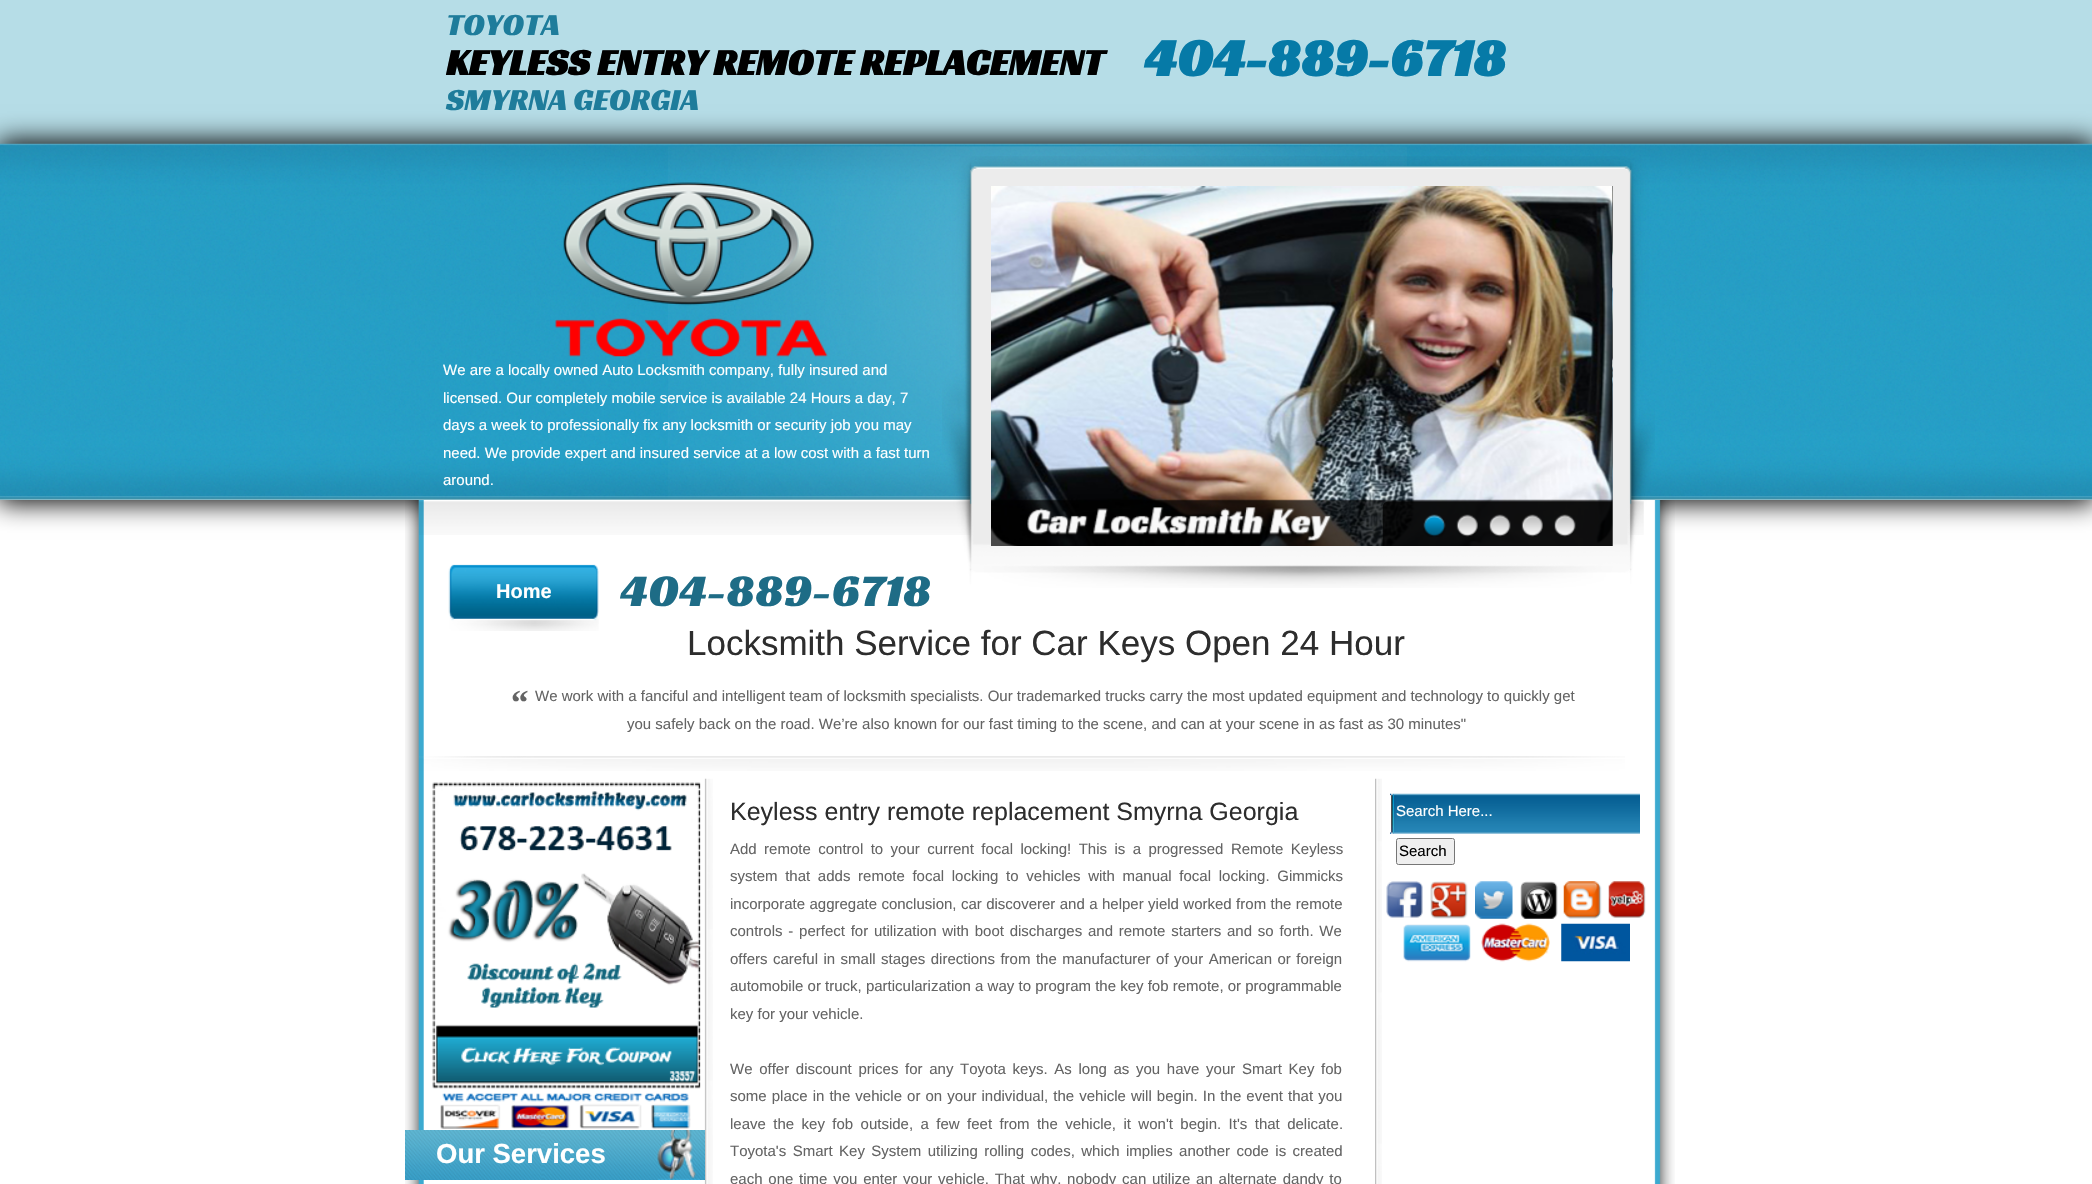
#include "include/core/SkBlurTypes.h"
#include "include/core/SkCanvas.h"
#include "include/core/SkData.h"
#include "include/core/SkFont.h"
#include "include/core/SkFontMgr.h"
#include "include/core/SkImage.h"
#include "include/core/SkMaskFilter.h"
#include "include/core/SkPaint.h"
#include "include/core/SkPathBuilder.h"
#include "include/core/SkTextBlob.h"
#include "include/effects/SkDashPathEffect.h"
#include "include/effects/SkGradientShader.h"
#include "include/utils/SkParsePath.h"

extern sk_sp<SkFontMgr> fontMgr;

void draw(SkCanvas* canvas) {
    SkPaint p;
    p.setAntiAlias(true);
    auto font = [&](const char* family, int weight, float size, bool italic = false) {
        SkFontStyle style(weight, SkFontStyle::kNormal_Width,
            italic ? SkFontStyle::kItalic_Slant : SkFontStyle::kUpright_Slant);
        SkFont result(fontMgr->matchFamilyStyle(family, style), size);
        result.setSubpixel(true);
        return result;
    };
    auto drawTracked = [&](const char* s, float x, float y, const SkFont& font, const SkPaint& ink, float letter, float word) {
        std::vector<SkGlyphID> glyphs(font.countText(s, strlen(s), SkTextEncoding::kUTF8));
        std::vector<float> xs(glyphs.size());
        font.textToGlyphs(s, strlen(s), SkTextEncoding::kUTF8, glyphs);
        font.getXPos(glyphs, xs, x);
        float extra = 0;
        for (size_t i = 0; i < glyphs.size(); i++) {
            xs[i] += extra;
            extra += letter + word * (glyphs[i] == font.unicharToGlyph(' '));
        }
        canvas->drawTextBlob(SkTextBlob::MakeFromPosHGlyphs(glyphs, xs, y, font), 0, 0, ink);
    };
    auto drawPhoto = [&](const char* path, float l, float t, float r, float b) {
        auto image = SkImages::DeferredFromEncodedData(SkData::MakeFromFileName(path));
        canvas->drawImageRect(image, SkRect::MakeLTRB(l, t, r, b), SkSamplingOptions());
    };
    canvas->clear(0xFFFFFFFF);
    p.setColor(0xFFB6DDE7);
    canvas->drawRect(SkRect::MakeLTRB(0, 0, 2092, 144), p);
    auto font1 = font("Racing Sans One", 400, 31.25f);
    p.setColor(0xFF1E7C9B);
    canvas->drawString("TOYOTA", 446, 35, font1, p);
    auto font2 = font("Racing Sans One", 700, 37.5f);
    p.setColor(0xFF000000);
    canvas->drawString("KEYLESS ENTRY REMOTE REPLACEMENT", 446, 75, font2, p);
    auto font3 = font("Racing Sans One", 700, 53.75f);
    p.setColor(0xFF067AA7);
    canvas->drawString("404-889-6718", 1144, 76, font3, p);
    p.setColor(0xFF000000);
    p.setMaskFilter(SkMaskFilter::MakeBlur(kNormal_SkBlurStyle, 12.5f));
    canvas->drawRect(SkRect::MakeLTRB(-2, 141, 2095, 503), p);
    p.setMaskFilter(nullptr);
    p.setColor(0xFF1E7C9B);
    canvas->drawString("SMYRNA GEORGIA", 446, 110, font1, p);
    drawPhoto("media/1.png", 0, 143, 2092, 500);
    drawPhoto("media/2.png", 668, 146, 1407, 500);
    drawPhoto("media/3.png", 555, 182, 828, 357);
    auto font4 = font("Liberation Sans", 400, 15);
    p.setColor(0xFFFFFFFF);
    {
        const struct { const char* s; float x, y; } items[] = {
            {"We are a locally owned Auto Locksmith company, fully insured and", 443, 375},
            {"licensed. Our completely mobile service is available 24 Hours a day, 7", 443, 403},
            {"days a week to professionally fix any locksmith or security job you may", 443, 430},
            {"need. We provide expert and insured service at a low cost with a fast turn", 443, 458},
            {"around.", 443, 485},
        };
        for (auto [s, x, y] : items) {
            canvas->drawString(s, x, y, font4, p);
        }
    }
    drawPhoto("media/14.png", 405, 500, 1675, 1184);
    drawPhoto("media/4.png", 448, 564, 599, 631);
    auto font5 = font("Liberation Sans", 700, 20);
    canvas->drawString("Home", 496, 598, font5, p);
    auto font6 = font("Racing Sans One", 400, 46.25f);
    p.setColor(0xFF1E6C86);
    canvas->drawString("404-889-6718", 620, 606, font6, p);
    drawPhoto("media/15.png", 419, 501, 1644, 535);
    drawPhoto("media/5.png", 942, 156, 1655, 588);
    drawPhoto("media/6.png", 991, 186, 1613, 546);
    drawPhoto("media/7.png", 1612, 186, 1613, 546);
    drawPhoto("media/8.png", 1382, 501, 1613, 546);
    drawPhoto("media/9.png", 1423, 514, 1446, 537);
    drawPhoto("media/10.png", 1456, 514, 1478, 537);
    drawPhoto("media/11.png", 1489, 514, 1511, 537);
    drawPhoto("media/12.png", 1521, 514, 1543, 537);
    drawPhoto("media/13.png", 1554, 514, 1576, 537);
    drawPhoto("media/16.png", 419, 756, 1625, 771);
    auto font7 = font("Liberation Sans", 400, 35);
    p.setColor(0xFF2D2D2D);
    canvas->drawString("Locksmith Service for Car Keys Open 24 Hour", 687, 655, font7, p);
    auto font8 = font("Liberation Serif", 700, 35);
    p.setColor(0xFF646464);
    canvas->drawString("“", 511, 714, font8, p);
    canvas->drawString("We work with a fanciful and intelligent team of locksmith specialists. Our trademarked trucks carry the most updated equipment and technology to quickly get", 535, 701, font4, p);
    canvas->drawString("you safely back on the road. We’re also known for our fast timing to the scene, and can at your scene in as fast as 30 minutes\"", 627, 729, font4, p);
    auto font9 = font("Liberation Sans", 400, 25);
    p.setColor(0xFF2D2D2D);
    canvas->drawString("Keyless entry remote replacement Smyrna Georgia", 730, 820, font9, p);
    p.setColor(0xFF646464);
    drawTracked("Add remote control to your current focal locking! This is a progressed Remote Keyless", 730, 854, font4, p, 0, 3.25f);
    drawTracked("system that adds remote focal locking to vehicles with manual focal locking. Gimmicks", 730, 881, font4, p, 0, 3.5f);
    drawTracked("incorporate aggregate conclusion, car discoverer and a helper yield worked from the remote", 730, 909, font4, p, 0, 0.25f);
    drawTracked("controls - perfect for utilization with boot discharges and remote starters and so forth. We", 730, 936, font4, p, 0, 1.6f);
    drawTracked("offers careful in small stages directions from the manufacturer of your American or foreign", 730, 964, font4, p, 0, 1.3f);
    canvas->drawString("automobile or truck, particularization a way to program the key fob remote, or programmable", 730, 991, font4, p);
    canvas->drawString("key for your vehicle.", 730, 1019, font4, p);
    drawTracked("We offer discount prices for any Toyota keys. As long as you have your Smart Key fob", 730, 1074, font4, p, 0, 2.5f);
    drawTracked("some place in the vehicle or on your individual, the vehicle will begin. In the event that you", 730, 1101, font4, p, 0, 0.9f);
    drawTracked("leave the key fob outside, a few feet from the vehicle, it won't begin. It's that delicate.", 730, 1129, font4, p, 0, 3.25f);
    drawTracked("Toyota's Smart Key System utilizing rolling codes, which implies another code is created", 730, 1156, font4, p, 0, 2.25f);
    drawTracked("each one time you enter your vehicle. That why, nobody can utilize an alternate dandy to", 730, 1184, font4, p, 0, 1.6f);
    drawPhoto("media/17.png", 1375, 778, 1382, 1184);
    drawPhoto("media/18.png", 1390, 793, 1640, 834);
    p.setColor(0xFFFFFFFF);
    canvas->drawString("Search Here...", 1396, 816, font4, p);
    p.setColor(0xFFEFEFEF);
    canvas->drawRoundRect(SkRect::MakeLTRB(1396.5f, 838.5f, 1454.5f, 864.5f), 2, 2, p);
    p.setStyle(SkPaint::kStroke_Style);
    p.setStrokeWidth(1);
    p.setColor(0xFF767676);
    canvas->drawRoundRect(SkRect::MakeLTRB(1396.5f, 838.5f, 1454.5f, 864.5f), 2, 2, p);
    p.setStyle(SkPaint::kFill_Style);
    p.setColor(0xFF000000);
    canvas->drawString("Search", 1399, 856, font4, p);
    drawPhoto("media/19.png", 1386, 881, 1423, 918);
    drawPhoto("media/20.png", 1430, 881, 1468, 919);
    drawPhoto("media/21.png", 1475, 881, 1513, 919);
    drawPhoto("media/22.png", 1520, 881, 1558, 919);
    drawPhoto("media/23.png", 1563, 881, 1602, 919);
    drawPhoto("media/24.png", 1608, 881, 1646, 918);
    drawPhoto("media/25.png", 1403, 924, 1471, 962);
    drawPhoto("media/26.png", 1481, 923, 1550, 962);
    drawPhoto("media/27.png", 1561, 923, 1630, 962);
    drawPhoto("media/28.png", 704, 778, 713, 1184);
    drawPhoto("media/29.png", 432, 782, 701, 1089);
    drawPhoto("media/30.png", 440, 1093, 691, 1129);
    drawPhoto("media/31.png", 405, 1130, 705, 1180);
    auto font10 = font("Liberation Sans", 700, 27.5f);
    p.setColor(0xFFFFFFFF);
    canvas->drawString("Our Services", 436, 1163, font10, p);
}
